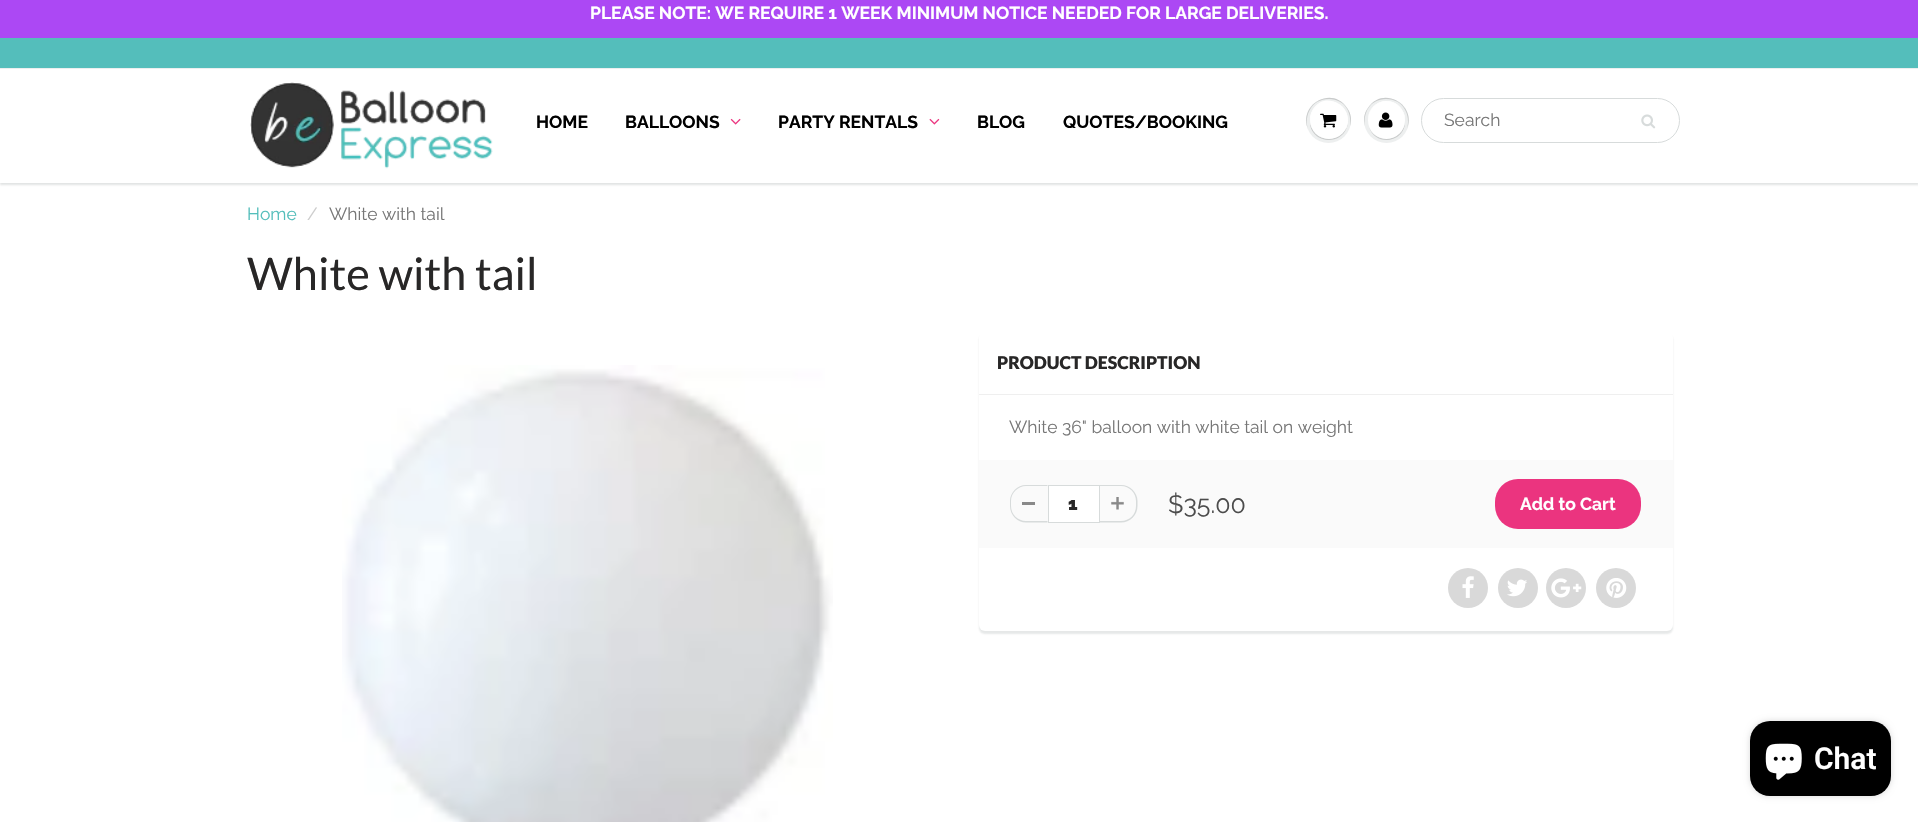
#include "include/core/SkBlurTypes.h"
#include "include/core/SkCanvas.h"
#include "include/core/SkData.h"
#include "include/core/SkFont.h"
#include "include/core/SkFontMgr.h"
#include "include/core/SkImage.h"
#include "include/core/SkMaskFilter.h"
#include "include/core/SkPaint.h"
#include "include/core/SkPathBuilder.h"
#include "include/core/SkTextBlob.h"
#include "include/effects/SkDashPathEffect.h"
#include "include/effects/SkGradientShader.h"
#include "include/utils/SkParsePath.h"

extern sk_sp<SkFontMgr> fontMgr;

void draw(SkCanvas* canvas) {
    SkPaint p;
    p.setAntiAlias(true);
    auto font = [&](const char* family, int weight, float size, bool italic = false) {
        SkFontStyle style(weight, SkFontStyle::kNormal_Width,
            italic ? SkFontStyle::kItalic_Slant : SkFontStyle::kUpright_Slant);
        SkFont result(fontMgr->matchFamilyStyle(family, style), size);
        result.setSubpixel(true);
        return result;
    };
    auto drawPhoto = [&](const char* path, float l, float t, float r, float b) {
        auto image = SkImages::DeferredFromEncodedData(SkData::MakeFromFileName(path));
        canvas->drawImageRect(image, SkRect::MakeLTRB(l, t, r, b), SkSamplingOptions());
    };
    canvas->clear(0xFFFFFFFF);
    p.setColor(0xFFAC48F4);
    canvas->drawRect(SkRect::MakeLTRB(0, 0, 1918, 38), p);
    auto font1 = font("Raleway", 700, 17.5f);
    p.setColor(0xFFFFFFFF);
    canvas->drawString("PLEASE NOTE: WE REQUIRE 1 WEEK MINIMUM NOTICE NEEDED FOR LARGE DELIVERIES.", 590, 19, font1, p);
    p.setColor(0xFF54BEBB);
    canvas->drawRect(SkRect::MakeLTRB(0, 38, 1918, 68), p);
    p.setColor(0x1F0B191C);
    p.setMaskFilter(SkMaskFilter::MakeBlur(kNormal_SkBlurStyle, 1));
    canvas->drawRect(SkRect::MakeLTRB(0, 70, 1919, 185), p);
    p.setMaskFilter(nullptr);
    p.setColor(0xFFFFFFFF);
    canvas->drawRect(SkRect::MakeLTRB(0, 69, 1918, 183), p);
    p.setColor(0xFFECEFEF);
    canvas->drawRect(SkRect::MakeLTRB(0, 68, 1918, 69), p);
    drawPhoto("media/1.png", 250, 82, 493, 169);
    p.setColor(0xFF000000);
    canvas->drawString("HOME", 536, 128, font1, p);
    canvas->drawString("BALLOONS", 625, 128, font1, p);
    drawPhoto("media/2.png", 730, 118, 741, 125);
    canvas->drawString("PARTY RENTALS", 778, 128, font1, p);
    drawPhoto("media/3.png", 929, 118, 940, 125);
    canvas->drawString("BLOG", 977, 128, font1, p);
    canvas->drawString("QUOTES/BOOKING", 1063, 128, font1, p);
    p.setColor(0xFFEDEFEF);
    canvas->drawCircle(1328.5f, 120.5f, 22.5f, p);
    p.setColor(0xFFC9CBCB);
    canvas->drawPath(SkPathBuilder().moveTo(1329, 99).cubicTo(1345, 99, 1352, 113, 1350, 126).cubicTo(1352, 120, 1351, 113, 1347, 108).cubicTo(1332, 85, 1298, 105, 1308, 129).cubicTo(1304, 116, 1311, 99, 1329, 99).close().detach(), p);
    canvas->drawPath(SkPathBuilder().moveTo(1310, 121).cubicTo(1309, 141.5f, 1338.5f, 147.5f, 1346.5f, 128.5f).cubicTo(1348.5f, 124.5f, 1348.5f, 119.5f, 1347, 115).cubicTo(1352, 133, 1329.5f, 147, 1315.5f, 133.5f).cubicTo(1312.5f, 130, 1310, 125.5f, 1310, 121).close().detach(), p);
    p.setColor(0xFFFFFFFF);
    canvas->drawCircle(1329, 120, 19, p);
    canvas->drawPath(SkPathBuilder().moveTo(1329, 102).cubicTo(1345, 102, 1350, 119, 1345, 131).cubicTo(1358, 110, 1327, 88, 1313, 109).cubicTo(1310, 114, 1309, 119, 1311, 124).cubicTo(1309, 114, 1315, 102, 1329, 102).close().detach(), p);
    drawPhoto("media/4.png", 1320, 113, 1337, 128);
    p.setColor(0xFFEDEFEF);
    canvas->drawCircle(1386.5f, 120.5f, 22.5f, p);
    p.setColor(0xFFC9CBCB);
    canvas->drawPath(SkPathBuilder().moveTo(1386, 99).cubicTo(1404, 99, 1411, 116, 1407, 129).cubicTo(1417, 105, 1383, 85, 1368, 108).cubicTo(1364, 113, 1363, 120, 1365, 126).cubicTo(1363, 113, 1370, 99, 1386, 99).close().detach(), p);
    canvas->drawPath(SkPathBuilder().moveTo(1405, 121).cubicTo(1404, 141, 1376, 145.5f, 1369, 127).cubicTo(1375, 147.5f, 1406, 142.5f, 1405, 121).close().detach(), p);
    p.setColor(0xFFFFFFFF);
    canvas->drawRoundRect(SkRect::MakeLTRB(1368, 101, 1405, 139), 18.5f, 18.5f, p);
    canvas->drawPath(SkPathBuilder().moveTo(1386, 102).cubicTo(1401, 102, 1407, 115.5f, 1404, 126).cubicTo(1405.5f, 121.5f, 1405.5f, 116.5f, 1403.5f, 112.5f).cubicTo(1395.5f, 93.5f, 1367.5f, 99, 1368, 120.5f).cubicTo(1368, 111.5f, 1374, 102, 1386, 102).close().detach(), p);
    drawPhoto("media/5.png", 1378, 112, 1393, 128);
    p.setStyle(SkPaint::kStroke_Style);
    p.setStrokeWidth(1);
    p.setColor(0xFFD7DBDB);
    canvas->drawRoundRect(SkRect::MakeLTRB(1421.5f, 98.5f, 1679.5f, 142.5f), 22, 22, p);
    auto font2 = font("Raleway", 400, 17.5f);
    p.setStyle(SkPaint::kFill_Style);
    p.setColor(0xFF777777);
    canvas->drawString("Search", 1444, 126, font2, p);
    drawPhoto("media/6.png", 1641, 114, 1656, 129);
    p.setColor(0xFF54BEBB);
    canvas->drawString("Home", 247, 220, font2, p);
    p.setColor(0xFFCCCCCC);
    canvas->drawString("/", 307, 220, font2, p);
    p.setColor(0xFF777777);
    canvas->drawString("White with tail", 329, 220, font2, p);
    auto font3 = font("Lato", 400, 45);
    p.setColor(0xFF282727);
    canvas->drawString("White with tail", 247, 290, font3, p);
    drawPhoto("media/7.png", 342, 365, 833, 822);
    p.setColor(0x1A0B191C);
    p.setMaskFilter(SkMaskFilter::MakeBlur(kNormal_SkBlurStyle, 1));
    canvas->drawRoundRect(SkRect::MakeLTRB(979, 334, 1673, 634), 6, 6, p);
    p.setMaskFilter(nullptr);
    p.setColor(0xFFFFFFFF);
    canvas->drawRoundRect(SkRect::MakeLTRB(979, 331, 1673, 631), 6, 6, p);
    p.setColor(0xFFEFEFEF);
    canvas->drawRect(SkRect::MakeLTRB(979, 394, 1673, 395), p);
    auto font4 = font("Lato", 900, 17.5f);
    p.setColor(0xFF282727);
    canvas->drawString("PRODUCT DESCRIPTION", 997, 369, font4, p);
    p.setColor(0xFF777777);
    canvas->drawString("White 36\" balloon with white tail on weight", 1009, 433, font2, p);
    p.setColor(0xFFFAFAFA);
    canvas->drawRect(SkRect::MakeLTRB(979, 460, 1673, 548), p);
    p.setColor(0xFF898989);
    canvas->drawRect(SkRect::MakeLTRB(1022, 502, 1035, 505), p);
    p.setColor(0xFFD7DBDB);
    canvas->drawPath(SkPathBuilder(SkPathFillType::kEvenOdd).moveTo(1026, 485).lineTo(1047.5f, 485).lineTo(1047.5f, 522.5f).lineTo(1026, 522.5f).cubicTo(1017.5f, 522.5f, 1010, 515, 1010, 506).lineTo(1010, 501).cubicTo(1010, 492.5f, 1017.5f, 485, 1026, 485).close().moveTo(1026, 486).lineTo(1047.5f, 486).lineTo(1047.5f, 521).lineTo(1026, 521).cubicTo(1018, 521, 1011, 514.5f, 1011, 506).lineTo(1011, 501).cubicTo(1011, 493, 1018, 486, 1026, 486).close().detach(), p);
    p.setColor(0xFFFFFFFF);
    canvas->drawRect(SkRect::MakeLTRB(1048.5f, 485.5f, 1099.5f, 522.5f), p);
    p.setStyle(SkPaint::kStroke_Style);
    p.setColor(0xFFD7DBDB);
    canvas->drawRect(SkRect::MakeLTRB(1048.5f, 485.5f, 1099.5f, 522.5f), p);
    auto font5 = font("Raleway", 900, 17.5f);
    p.setStyle(SkPaint::kFill_Style);
    p.setColor(0xFF282727);
    canvas->drawString("1", 1068, 510, font5, p);
    drawPhoto("media/8.png", 1111, 497, 1124, 510);
    p.setColor(0xFFD7DBDB);
    canvas->drawPath(SkPathBuilder(SkPathFillType::kEvenOdd).moveTo(1100, 485).lineTo(1121, 485).cubicTo(1130, 485, 1137.5f, 492.5f, 1137.5f, 501).lineTo(1137.5f, 506).cubicTo(1137.5f, 515, 1130, 522.5f, 1121, 522.5f).lineTo(1100, 522.5f).close().moveTo(1100, 486).lineTo(1121, 486).cubicTo(1129.5f, 486, 1136, 493, 1136, 501).lineTo(1136, 506).cubicTo(1136, 514.5f, 1129.5f, 521, 1121, 521).lineTo(1100, 521).close().detach(), p);
    auto font6 = font("Raleway", 400, 25);
    p.setColor(0xFF4C4C4C);
    canvas->drawString("$35.00", 1168, 513, font6, p);
    p.setColor(0xFFEB347F);
    canvas->drawRoundRect(SkRect::MakeLTRB(1495, 479, 1641, 529), 23, 23, p);
    p.setColor(0xFFFFFFFF);
    canvas->drawString("Add to Cart", 1520, 510, font1, p);
    p.setColor(0xFFD9D9D9);
    canvas->drawCircle(1468, 588, 20, p);
    drawPhoto("media/9.png", 1462, 576, 1474, 598);
    canvas->drawCircle(1518, 588, 20, p);
    drawPhoto("media/10.png", 1507, 579, 1527, 597);
    canvas->drawCircle(1566, 588, 20, p);
    drawPhoto("media/11.png", 1551, 578, 1582, 598);
    canvas->drawCircle(1616, 588, 20, p);
    drawPhoto("media/12.png", 1606, 578, 1627, 598);
    p.setColor(0x26000000);
    p.setMaskFilter(SkMaskFilter::MakeBlur(kNormal_SkBlurStyle, 3));
    canvas->drawRoundRect(SkRect::MakeLTRB(1750, 721, 1891, 796), 20, 20, p);
    p.setMaskFilter(nullptr);
    p.setColor(0xFF000000);
    canvas->drawRoundRect(SkRect::MakeLTRB(1750, 721, 1891, 796), 20, 20, p);
    drawPhoto("media/13.png", 1765, 743, 1802, 780);
    auto font7 = font("Roboto", 600, 30);
    p.setColor(0xFFFFFFFF);
    canvas->drawString("Chat", 1814, 769, font7, p);
}
